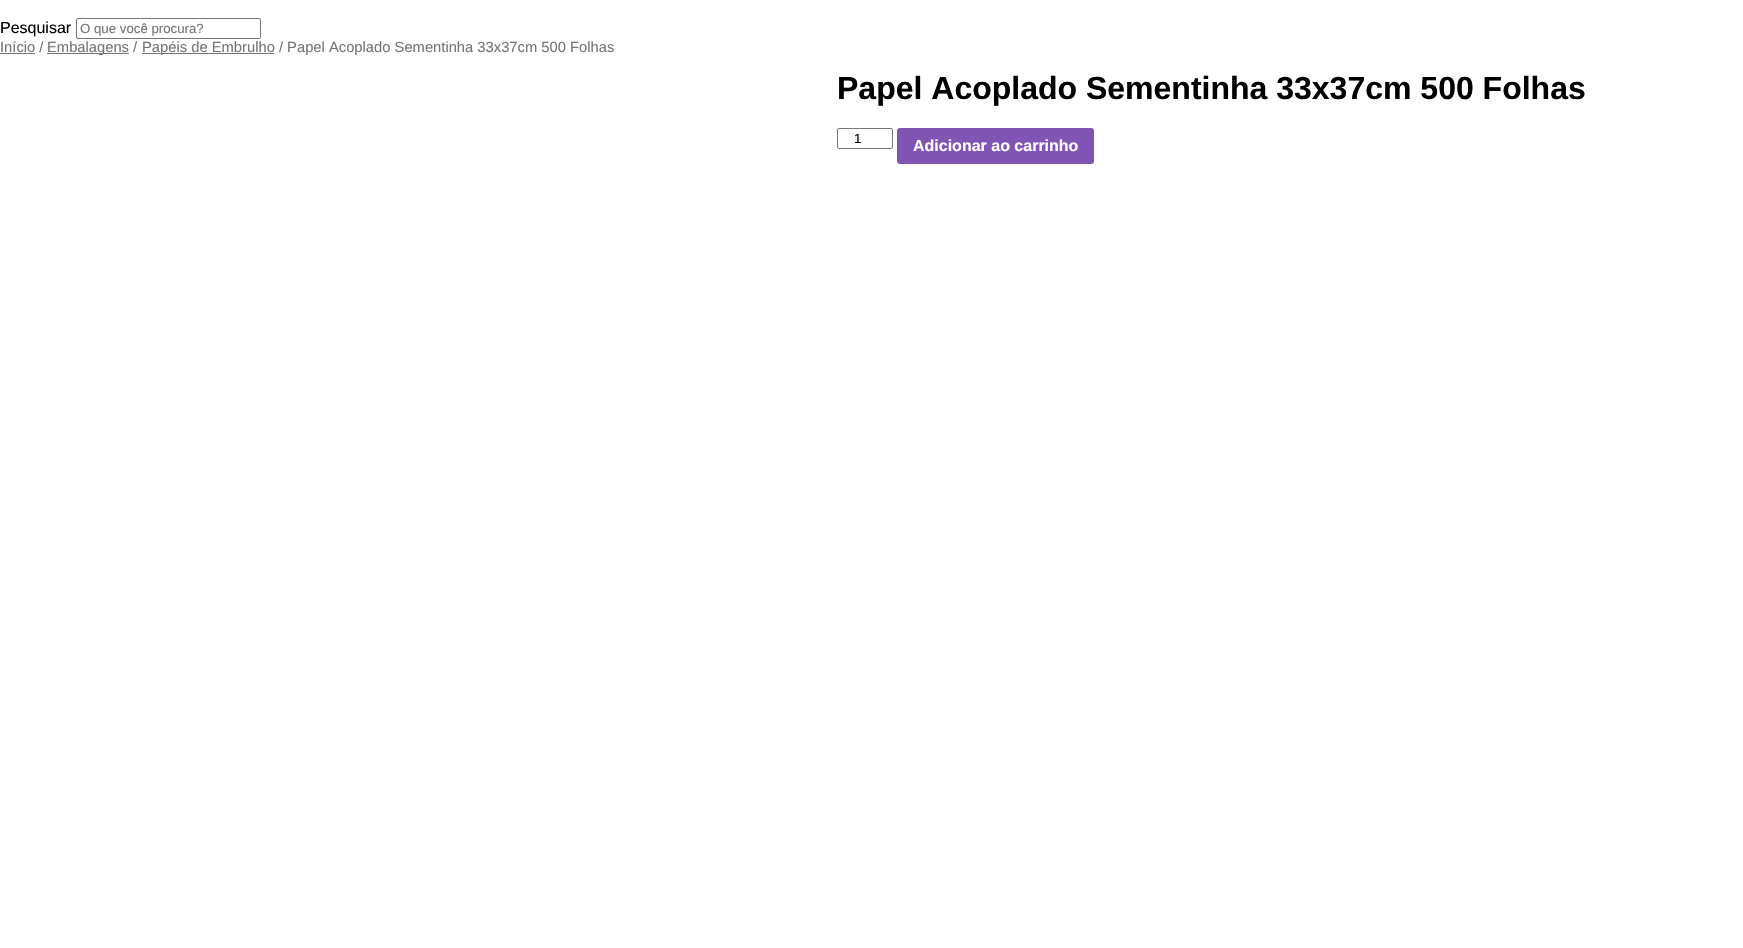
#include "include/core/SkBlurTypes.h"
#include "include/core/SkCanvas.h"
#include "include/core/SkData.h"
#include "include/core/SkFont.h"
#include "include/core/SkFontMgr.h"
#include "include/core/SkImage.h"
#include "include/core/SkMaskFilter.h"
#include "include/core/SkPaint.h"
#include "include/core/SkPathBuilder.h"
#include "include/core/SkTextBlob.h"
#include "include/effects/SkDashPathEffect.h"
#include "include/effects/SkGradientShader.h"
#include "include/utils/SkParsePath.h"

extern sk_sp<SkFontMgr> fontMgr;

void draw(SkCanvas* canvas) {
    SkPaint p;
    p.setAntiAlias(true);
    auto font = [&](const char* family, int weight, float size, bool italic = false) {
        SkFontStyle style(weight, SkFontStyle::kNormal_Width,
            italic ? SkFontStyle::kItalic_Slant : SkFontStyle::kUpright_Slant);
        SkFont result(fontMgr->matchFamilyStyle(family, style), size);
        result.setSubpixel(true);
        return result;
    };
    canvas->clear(0xFFFFFFFF);
    auto font1 = font("Liberation Sans", 400, 16);
    p.setColor(0xFF000000);
    canvas->drawString("Pesquisar", 0, 33, font1, p);
    p.setStyle(SkPaint::kStroke_Style);
    p.setStrokeWidth(1);
    p.setColor(0xFF767676);
    canvas->drawRoundRect(SkRect::MakeLTRB(76.5f, 18.5f, 260.5f, 38.5f), 1.5f, 1.5f, p);
    auto font2 = font("Liberation Sans", 400, 13.25f);
    p.setStyle(SkPaint::kFill_Style);
    p.setColor(0xFF757575);
    canvas->drawString("O que você procura?", 80, 33, font2, p);
    auto font3 = font("Liberation Sans", 400, 14.75f);
    canvas->drawString("Início /", 0, 52, font3, p);
    p.setColor(0xFF767676);
    canvas->drawRect(SkRect::MakeLTRB(0, 53, 35, 54), p);
    canvas->drawRect(SkRect::MakeLTRB(47, 53, 129, 54), p);
    p.setColor(0xFF757575);
    canvas->drawString("Embalagens /", 47, 52, font3, p);
    p.setColor(0xFF767676);
    canvas->drawRect(SkRect::MakeLTRB(142, 53, 274, 54), p);
    p.setColor(0xFF757575);
    canvas->drawString("Papéis de Embrulho / Papel Acoplado Sementinha 33x37cm 500 Folhas", 142, 52, font3, p);
    auto font4 = font("Liberation Sans", 700, 32);
    p.setColor(0xFF000000);
    canvas->drawString("Papel Acoplado Sementinha 33x37cm 500 Folhas", 837, 99, font4, p);
    p.setStyle(SkPaint::kStroke_Style);
    p.setColor(0xFF767676);
    canvas->drawRoundRect(SkRect::MakeLTRB(837.5f, 128.5f, 892.5f, 148.5f), 1.5f, 1.5f, p);
    p.setStyle(SkPaint::kFill_Style);
    p.setColor(0xFF000000);
    canvas->drawString("1", 854, 143, font2, p);
    p.setColor(0xFF7F54B3);
    canvas->drawRoundRect(SkRect::MakeLTRB(897, 128, 1094, 164), 3, 3, p);
    auto font5 = font("Liberation Sans", 700, 16);
    p.setColor(0xFFFFFFFF);
    canvas->drawString("Adicionar ao carrinho", 913, 151, font5, p);
}
